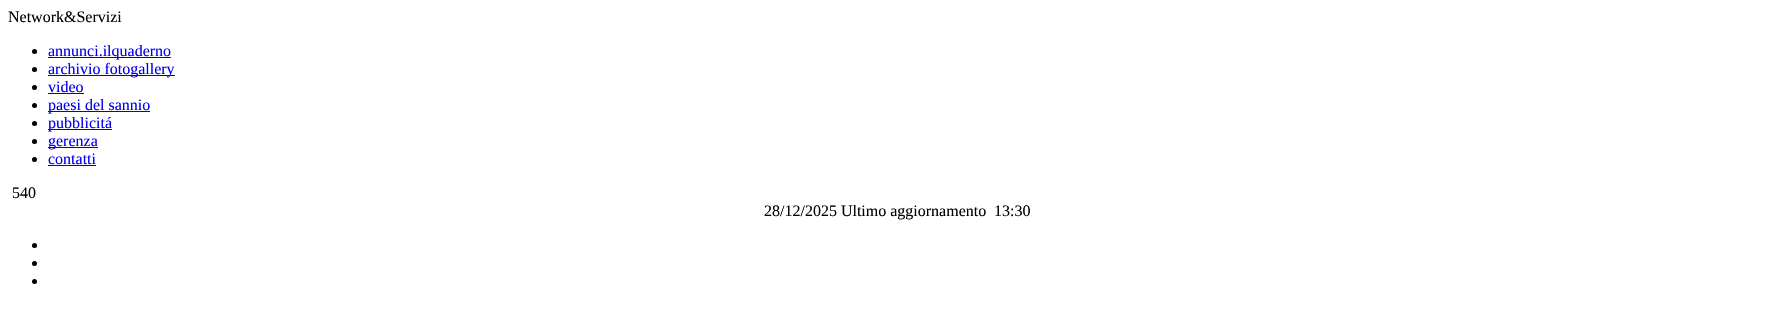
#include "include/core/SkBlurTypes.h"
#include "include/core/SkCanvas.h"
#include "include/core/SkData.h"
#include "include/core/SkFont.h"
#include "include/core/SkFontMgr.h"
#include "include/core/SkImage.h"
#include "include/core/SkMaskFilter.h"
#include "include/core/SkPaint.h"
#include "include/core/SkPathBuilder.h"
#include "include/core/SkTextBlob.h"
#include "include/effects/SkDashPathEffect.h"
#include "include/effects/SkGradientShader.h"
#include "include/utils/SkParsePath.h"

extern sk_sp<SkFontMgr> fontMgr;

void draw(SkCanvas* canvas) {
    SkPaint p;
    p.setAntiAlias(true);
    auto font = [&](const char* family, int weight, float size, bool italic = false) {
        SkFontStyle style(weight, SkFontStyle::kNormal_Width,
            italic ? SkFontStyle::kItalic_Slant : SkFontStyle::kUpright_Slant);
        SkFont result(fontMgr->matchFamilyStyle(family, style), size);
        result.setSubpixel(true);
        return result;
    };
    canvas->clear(0xFFFFFFFF);
    auto font1 = font("Liberation Serif", 400, 16);
    p.setColor(0xFF000000);
    canvas->drawString("Network&Servizi", 8, 22, font1, p);
    canvas->drawCircle(34.5f, 51.5f, 2.5f, p);
    p.setColor(0xFF0000EE);
    canvas->drawRect(SkRect::MakeLTRB(48, 57, 171, 58), p);
    canvas->drawString("annunci.ilquaderno", 48, 56, font1, p);
    p.setColor(0xFF000000);
    canvas->drawCircle(34.5f, 69.5f, 2.5f, p);
    p.setColor(0xFF0000EE);
    canvas->drawRect(SkRect::MakeLTRB(48, 75, 175, 76), p);
    canvas->drawString("archivio fotogallery", 48, 74, font1, p);
    p.setColor(0xFF000000);
    canvas->drawCircle(34.5f, 87.5f, 2.5f, p);
    p.setColor(0xFF0000EE);
    canvas->drawString("video", 48, 92, font1, p);
    canvas->drawRect(SkRect::MakeLTRB(48, 93, 84, 94), p);
    p.setColor(0xFF000000);
    canvas->drawCircle(34.5f, 105.5f, 2.5f, p);
    p.setColor(0xFF0000EE);
    canvas->drawRect(SkRect::MakeLTRB(48, 111, 150, 112), p);
    canvas->drawString("paesi del sannio", 48, 110, font1, p);
    p.setColor(0xFF000000);
    canvas->drawCircle(34.5f, 123.5f, 2.5f, p);
    p.setColor(0xFF0000EE);
    canvas->drawRect(SkRect::MakeLTRB(48, 129, 112, 130), p);
    canvas->drawString("pubblicitá", 48, 128, font1, p);
    p.setColor(0xFF000000);
    canvas->drawCircle(34.5f, 141.5f, 2.5f, p);
    p.setColor(0xFF0000EE);
    canvas->drawRect(SkRect::MakeLTRB(48, 147, 98, 148), p);
    canvas->drawString("gerenza", 48, 146, font1, p);
    p.setColor(0xFF000000);
    canvas->drawCircle(34.5f, 159.5f, 2.5f, p);
    p.setColor(0xFF0000EE);
    canvas->drawString("contatti", 48, 164, font1, p);
    canvas->drawRect(SkRect::MakeLTRB(48, 165, 96, 166), p);
    p.setColor(0xFF000000);
    {
        const struct { const char* s; float x, y; } items[] = {
            {"540", 12, 198},
            {"28/12/2025 Ultimo aggiornamento", 764, 216},
            {"13:30", 994, 216},
        };
        for (auto [s, x, y] : items) {
            canvas->drawString(s, x, y, font1, p);
        }
    }
    canvas->drawCircle(34.5f, 245.5f, 2.5f, p);
    canvas->drawCircle(34.5f, 263.5f, 2.5f, p);
    canvas->drawCircle(34.5f, 281.5f, 2.5f, p);
}
